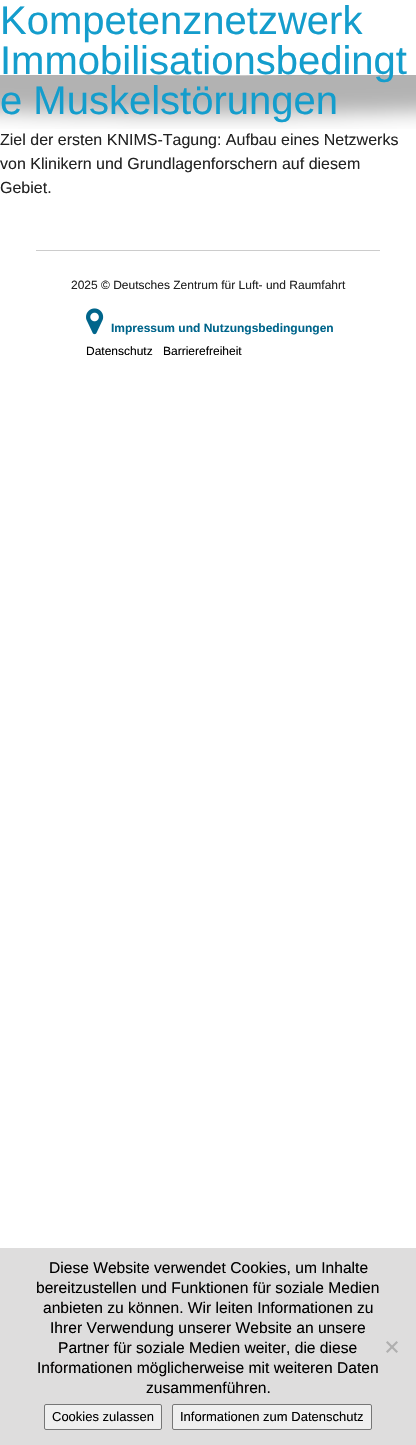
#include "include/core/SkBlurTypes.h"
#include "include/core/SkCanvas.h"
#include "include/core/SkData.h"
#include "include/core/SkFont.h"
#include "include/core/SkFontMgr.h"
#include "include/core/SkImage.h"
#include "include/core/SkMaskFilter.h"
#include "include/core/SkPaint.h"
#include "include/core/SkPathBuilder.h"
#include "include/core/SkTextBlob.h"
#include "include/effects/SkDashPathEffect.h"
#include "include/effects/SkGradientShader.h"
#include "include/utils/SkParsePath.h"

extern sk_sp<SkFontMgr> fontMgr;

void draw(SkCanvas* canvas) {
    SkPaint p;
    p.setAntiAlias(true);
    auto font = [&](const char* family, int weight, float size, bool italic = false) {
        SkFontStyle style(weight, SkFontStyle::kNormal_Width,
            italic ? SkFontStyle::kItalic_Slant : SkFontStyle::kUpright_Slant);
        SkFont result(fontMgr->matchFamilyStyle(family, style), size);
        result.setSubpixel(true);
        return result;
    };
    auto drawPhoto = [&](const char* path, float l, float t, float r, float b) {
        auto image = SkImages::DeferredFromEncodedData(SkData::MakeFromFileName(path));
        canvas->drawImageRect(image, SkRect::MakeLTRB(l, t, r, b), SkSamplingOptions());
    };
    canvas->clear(0xFFFFFFFF);
    drawPhoto("media/1.png", 0, 75, 416, 129);
    auto font1 = font("Liberation Sans", 400, 40);
    p.setColor(0xFF149DCC);
    {
        const struct { const char* s; float x, y; } items[] = {
            {"Kompetenznetzwerk", 0, 34},
            {"Immobilisationsbedingt", 0, 74},
            {"e Muskelstörungen", 0, 114},
        };
        for (auto [s, x, y] : items) {
            canvas->drawString(s, x, y, font1, p);
        }
    }
    auto font2 = font("Liberation Sans", 400, 16);
    p.setColor(0xFF232323);
    {
        const struct { const char* s; float x, y; } items[] = {
            {"Ziel der ersten KNIMS-Tagung: Aufbau eines Netzwerks", 0, 145},
            {"von Klinikern und Grundlagenforschern auf diesem", 0, 169},
            {"Gebiet.", 0, 193},
        };
        for (auto [s, x, y] : items) {
            canvas->drawString(s, x, y, font2, p);
        }
    }
    p.setColor(0xFFCCCCCC);
    canvas->drawRect(SkRect::MakeLTRB(36, 250, 380, 251), p);
    auto font3 = font("Liberation Sans", 400, 12);
    p.setColor(0xFF232323);
    canvas->drawString("2025 © Deutsches Zentrum für Luft- und Raumfahrt", 71, 289, font3, p);
    drawPhoto("media/2.png", 86, 308, 104, 335);
    auto font4 = font("Liberation Sans", 700, 12);
    p.setColor(0xFF00658B);
    canvas->drawString("Impressum und Nutzungsbedingungen", 111, 332, font4, p);
    p.setColor(0xFF000000);
    canvas->drawString("Datenschutz", 86, 355, font3, p);
    canvas->drawString("Barrierefreiheit", 163, 355, font3, p);
    p.setColor(0xFFDEDDDD);
    canvas->drawRect(SkRect::MakeLTRB(0, 1248, 416, 1445), p);
    auto font5 = font("Liberation Sans", 400, 15.6f);
    p.setColor(0xFF000000);
    {
        const struct { const char* s; float x, y; } items[] = {
            {"Diese Website verwendet Cookies, um Inhalte", 49, 1273},
            {"bereitzustellen und Funktionen für soziale Medien", 36, 1293},
            {"anbieten zu können. Wir leiten Informationen zu", 43, 1313},
            {"Ihrer Verwendung unserer Website an unsere", 50, 1333},
            {"Partner für soziale Medien weiter, die diese", 58, 1353},
            {"Informationen möglicherweise mit weiteren Daten", 37, 1373},
            {"zusammenführen.", 146, 1393},
        };
        for (auto [s, x, y] : items) {
            canvas->drawString(s, x, y, font5, p);
        }
    }
    p.setColor(0xFFAFAFAF);
    canvas->drawPath(SkPathBuilder().moveTo(396.5f, 1341).lineTo(398, 1342.5f).lineTo(387.5f, 1353).lineTo(386, 1351.5f).close().detach(), p);
    canvas->drawPath(SkPathBuilder().moveTo(386, 1342.5f).lineTo(387.5f, 1341).lineTo(398, 1351.5f).lineTo(396.5f, 1353).close().detach(), p);
    p.setColor(0xFFEFEFEF);
    canvas->drawRoundRect(SkRect::MakeLTRB(44.5f, 1404.5f, 161.5f, 1429.5f), 1.5f, 1.5f, p);
    p.setStyle(SkPaint::kStroke_Style);
    p.setStrokeWidth(1);
    p.setColor(0xFF767676);
    canvas->drawRoundRect(SkRect::MakeLTRB(44.5f, 1404.5f, 161.5f, 1429.5f), 1.5f, 1.5f, p);
    auto font6 = font("Liberation Sans", 400, 13);
    p.setStyle(SkPaint::kFill_Style);
    p.setColor(0xFF000000);
    canvas->drawString("Cookies zulassen", 52, 1421, font6, p);
    p.setColor(0xFFEFEFEF);
    canvas->drawRoundRect(SkRect::MakeLTRB(172.5f, 1404.5f, 371.5f, 1429.5f), 1.5f, 1.5f, p);
    p.setStyle(SkPaint::kStroke_Style);
    p.setColor(0xFF767676);
    canvas->drawRoundRect(SkRect::MakeLTRB(172.5f, 1404.5f, 371.5f, 1429.5f), 1.5f, 1.5f, p);
    p.setStyle(SkPaint::kFill_Style);
    p.setColor(0xFF000000);
    canvas->drawString("Informationen zum Datenschutz", 180, 1421, font6, p);
}
